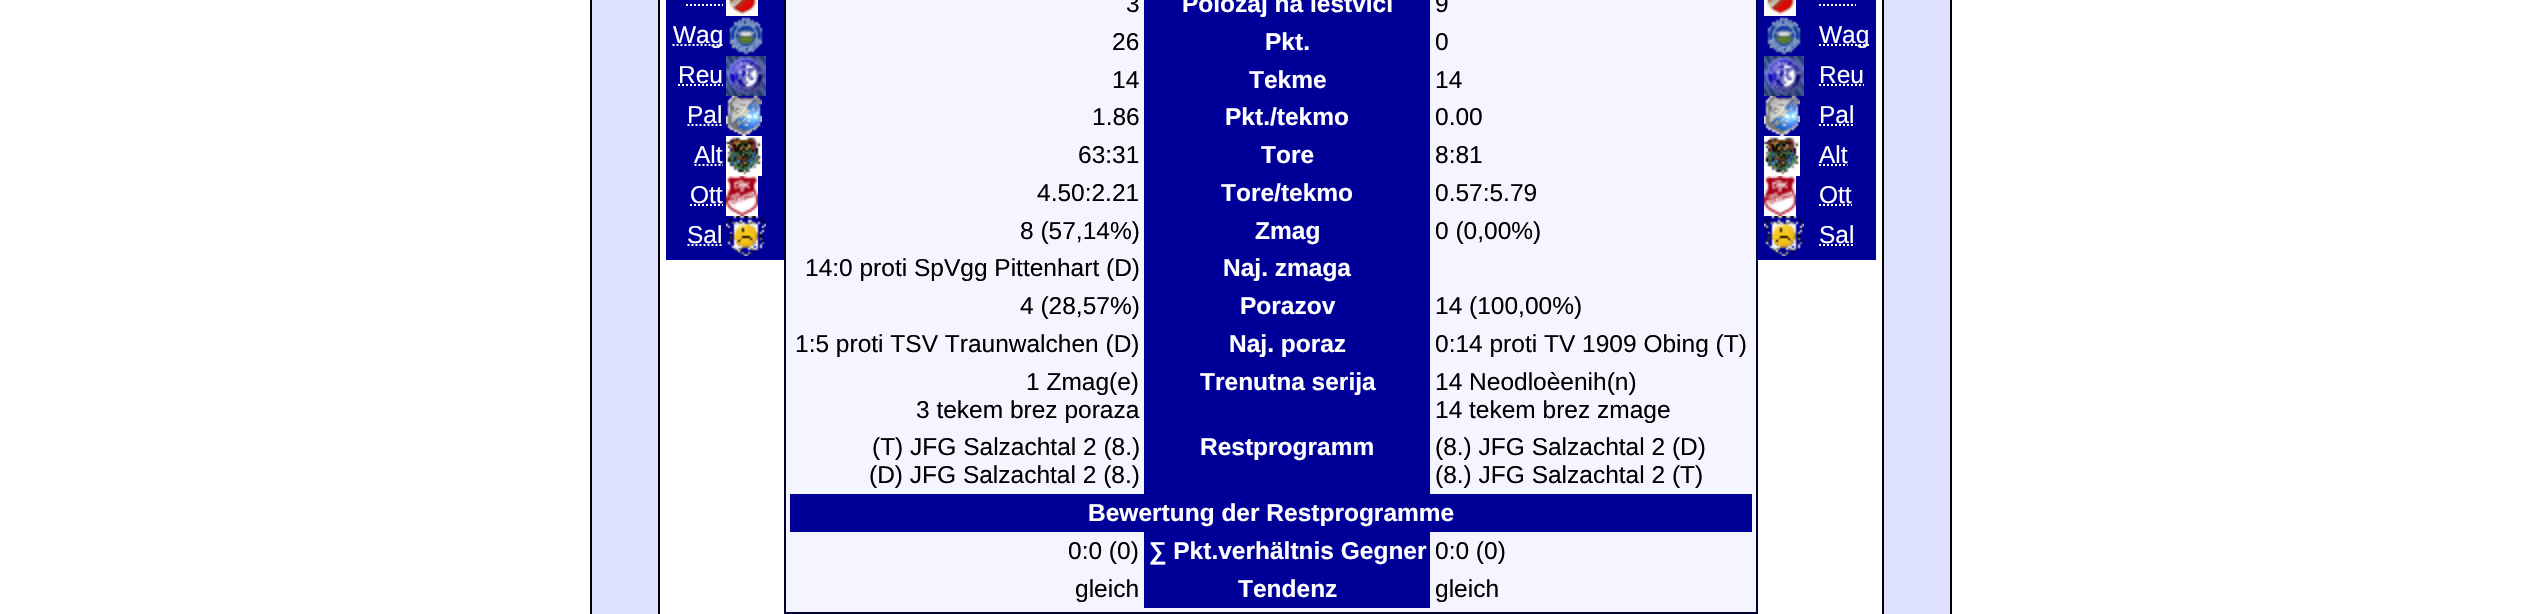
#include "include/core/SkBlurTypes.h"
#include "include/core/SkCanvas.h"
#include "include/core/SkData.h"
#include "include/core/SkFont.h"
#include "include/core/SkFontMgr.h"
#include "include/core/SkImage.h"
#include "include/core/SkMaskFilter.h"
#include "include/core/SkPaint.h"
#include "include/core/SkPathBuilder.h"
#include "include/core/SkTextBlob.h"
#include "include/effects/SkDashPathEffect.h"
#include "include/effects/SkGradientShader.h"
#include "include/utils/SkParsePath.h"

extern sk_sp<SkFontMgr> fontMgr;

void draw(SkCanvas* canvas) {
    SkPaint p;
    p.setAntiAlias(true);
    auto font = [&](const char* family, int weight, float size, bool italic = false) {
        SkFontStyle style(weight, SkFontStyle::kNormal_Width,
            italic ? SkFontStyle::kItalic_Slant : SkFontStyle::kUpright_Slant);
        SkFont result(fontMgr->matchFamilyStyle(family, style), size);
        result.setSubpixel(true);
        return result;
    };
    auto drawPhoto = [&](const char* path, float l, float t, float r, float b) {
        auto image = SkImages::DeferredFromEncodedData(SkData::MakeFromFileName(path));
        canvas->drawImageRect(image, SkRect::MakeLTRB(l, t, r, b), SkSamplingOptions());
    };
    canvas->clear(0xFFFFFFFF);
    p.setColor(0xFFDDE0FF);
    canvas->drawRect(SkRect::MakeLTRB(591, -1, 1951, 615), p);
    p.setStyle(SkPaint::kStroke_Style);
    p.setStrokeWidth(2);
    p.setColor(0xFF000000);
    canvas->drawRect(SkRect::MakeLTRB(591, -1, 1951, 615), p);
    p.setStyle(SkPaint::kFill_Style);
    p.setColor(0xFFFFFFFF);
    canvas->drawRect(SkRect::MakeLTRB(659, -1, 1883, 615), p);
    p.setStyle(SkPaint::kStroke_Style);
    p.setColor(0xFF000000);
    canvas->drawRect(SkRect::MakeLTRB(659, -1, 1883, 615), p);
    p.setStyle(SkPaint::kFill_Style);
    p.setColor(0xFF000099);
    canvas->drawRect(SkRect::MakeLTRB(666, 0, 784, 260), p);
    p.setStyle(SkPaint::kStroke_Style);
    p.setColor(0xFFFFFFFF);
    p.setPathEffect(SkDashPathEffect::Make({{2, 2}}, 0));
    canvas->drawPath(SkPathBuilder().moveTo(686, 5).lineTo(723, 5).detach(), p);
    p.setPathEffect(nullptr);
    drawPhoto("media/1.png", 726, 0, 758, 16);
    p.setPathEffect(SkDashPathEffect::Make({{2, 2}}, 0));
    canvas->drawPath(SkPathBuilder().moveTo(672.5f, 45).lineTo(723, 45).detach(), p);
    p.setPathEffect(nullptr);
    auto font1 = font("Liberation Sans", 400, 24.5f);
    p.setStyle(SkPaint::kFill_Style);
    canvas->drawString("Wag", 673, 43, font1, p);
    drawPhoto("media/2.png", 729, 17, 763, 55);
    canvas->drawString("Reu", 678, 83, font1, p);
    p.setStyle(SkPaint::kStroke_Style);
    p.setPathEffect(SkDashPathEffect::Make({{2, 2}}, 0));
    canvas->drawPath(SkPathBuilder().moveTo(678, 85).lineTo(723, 85).detach(), p);
    p.setPathEffect(nullptr);
    drawPhoto("media/3.png", 726, 56, 766, 96);
    p.setStyle(SkPaint::kFill_Style);
    canvas->drawString("Pal", 687, 123, font1, p);
    p.setStyle(SkPaint::kStroke_Style);
    p.setPathEffect(SkDashPathEffect::Make({{2, 2}}, 0));
    canvas->drawPath(SkPathBuilder().moveTo(687.5f, 125).lineTo(723, 125).detach(), p);
    p.setPathEffect(nullptr);
    drawPhoto("media/4.png", 726, 96, 762, 136);
    p.setStyle(SkPaint::kFill_Style);
    canvas->drawString("Alt", 694, 163, font1, p);
    p.setStyle(SkPaint::kStroke_Style);
    p.setPathEffect(SkDashPathEffect::Make({{2, 2}}, 0));
    canvas->drawPath(SkPathBuilder().moveTo(694.5f, 165).lineTo(723, 165).detach(), p);
    p.setPathEffect(nullptr);
    drawPhoto("media/5.png", 726, 136, 762, 176);
    p.setStyle(SkPaint::kFill_Style);
    canvas->drawString("Ott", 690, 203, font1, p);
    p.setStyle(SkPaint::kStroke_Style);
    p.setPathEffect(SkDashPathEffect::Make({{2, 2}}, 0));
    canvas->drawPath(SkPathBuilder().moveTo(690, 205).lineTo(723, 205).detach(), p);
    p.setPathEffect(nullptr);
    drawPhoto("media/6.png", 726, 176, 758, 216);
    p.setStyle(SkPaint::kFill_Style);
    canvas->drawString("Sal", 687, 243, font1, p);
    p.setStyle(SkPaint::kStroke_Style);
    p.setPathEffect(SkDashPathEffect::Make({{2, 2}}, 0));
    canvas->drawPath(SkPathBuilder().moveTo(687.5f, 245).lineTo(723, 245).detach(), p);
    p.setPathEffect(nullptr);
    drawPhoto("media/7.png", 726, 216, 766, 256);
    p.setStyle(SkPaint::kFill_Style);
    p.setColor(0xFFF5F5FF);
    canvas->drawRect(SkRect::MakeLTRB(785, -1, 1757, 613), p);
    p.setStyle(SkPaint::kStroke_Style);
    p.setColor(0xFF000033);
    canvas->drawRect(SkRect::MakeLTRB(785, -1, 1757, 613), p);
    p.setStyle(SkPaint::kFill_Style);
    p.setColor(0xFF000000);
    canvas->drawString("3", 1126, 12, font1, p);
    p.setColor(0xFF000099);
    canvas->drawRect(SkRect::MakeLTRB(1144, 0, 1430, 494), p);
    auto font2 = font("Liberation Sans", 700, 24.5f);
    p.setColor(0xFFFFFFFF);
    canvas->drawString("Položaj na lestvici", 1182, 12, font2, p);
    p.setColor(0xFF000000);
    canvas->drawString("9", 1435, 12, font1, p);
    canvas->drawString("26", 1112, 50, font1, p);
    p.setColor(0xFFFFFFFF);
    canvas->drawString("Pkt.", 1265, 50, font2, p);
    p.setColor(0xFF000000);
    canvas->drawString("0", 1435, 50, font1, p);
    canvas->drawString("14", 1112, 88, font1, p);
    p.setColor(0xFFFFFFFF);
    canvas->drawString("Tekme", 1249, 88, font2, p);
    p.setColor(0xFF000000);
    canvas->drawString("14", 1435, 88, font1, p);
    canvas->drawString("1.86", 1092, 125, font1, p);
    p.setColor(0xFFFFFFFF);
    canvas->drawString("Pkt./tekmo", 1225, 125, font2, p);
    p.setColor(0xFF000000);
    canvas->drawString("0.00", 1435, 125, font1, p);
    canvas->drawString("63:31", 1078, 163, font1, p);
    p.setColor(0xFFFFFFFF);
    canvas->drawString("Tore", 1261, 163, font2, p);
    p.setColor(0xFF000000);
    canvas->drawString("8:81", 1435, 163, font1, p);
    canvas->drawString("4.50:2.21", 1037, 201, font1, p);
    p.setColor(0xFFFFFFFF);
    canvas->drawString("Tore/tekmo", 1221, 201, font2, p);
    p.setColor(0xFF000000);
    canvas->drawString("0.57:5.79", 1435, 201, font1, p);
    canvas->drawString("8 (57,14%)", 1020, 239, font1, p);
    p.setColor(0xFFFFFFFF);
    canvas->drawString("Zmag", 1255, 239, font2, p);
    p.setColor(0xFF000000);
    canvas->drawString("0 (0,00%)", 1435, 239, font1, p);
    canvas->drawString("14:0 proti SpVgg Pittenhart (D)", 805, 276, font1, p);
    p.setColor(0xFFFFFFFF);
    canvas->drawString("Naj. zmaga", 1223, 276, font2, p);
    p.setColor(0xFF000000);
    canvas->drawString("4 (28,57%)", 1020, 314, font1, p);
    p.setColor(0xFFFFFFFF);
    canvas->drawString("Porazov", 1240, 314, font2, p);
    p.setColor(0xFF000000);
    canvas->drawString("14 (100,00%)", 1435, 314, font1, p);
    canvas->drawString("1:5 proti TSV Traunwalchen (D)", 795, 352, font1, p);
    p.setColor(0xFFFFFFFF);
    canvas->drawString("Naj. poraz", 1229, 352, font2, p);
    p.setColor(0xFF000000);
    {
        const struct { const char* s; float x, y; } items[] = {
            {"0:14 proti TV 1909 Obing (T)", 1435, 352},
            {"1 Zmag(e)", 1026, 390},
            {"3 tekem brez poraza", 916, 418},
        };
        for (auto [s, x, y] : items) {
            canvas->drawString(s, x, y, font1, p);
        }
    }
    p.setColor(0xFFFFFFFF);
    canvas->drawString("Trenutna serija", 1200, 390, font2, p);
    p.setColor(0xFF000000);
    {
        const struct { const char* s; float x, y; } items[] = {
            {"14 Neodloèenih(n)", 1435, 390},
            {"14 tekem brez zmage", 1435, 418},
            {"(T) JFG Salzachtal 2 (8.)", 872, 455},
            {"(D) JFG Salzachtal 2 (8.)", 869, 483},
        };
        for (auto [s, x, y] : items) {
            canvas->drawString(s, x, y, font1, p);
        }
    }
    p.setColor(0xFFFFFFFF);
    canvas->drawString("Restprogramm", 1200, 455, font2, p);
    p.setColor(0xFF000000);
    canvas->drawString("(8.) JFG Salzachtal 2 (D)", 1435, 455, font1, p);
    canvas->drawString("(8.) JFG Salzachtal 2 (T)", 1435, 483, font1, p);
    p.setColor(0xFF000099);
    canvas->drawRect(SkRect::MakeLTRB(790, 494, 1752, 532), p);
    p.setColor(0xFFFFFFFF);
    canvas->drawString("Bewertung der Restprogramme", 1088, 521, font2, p);
    p.setColor(0xFF000000);
    canvas->drawString("0:0 (0)", 1068, 559, font1, p);
    p.setColor(0xFF000099);
    canvas->drawRect(SkRect::MakeLTRB(1144, 532, 1430, 608), p);
    p.setColor(0xFFFFFFFF);
    canvas->drawString("∑ Pkt.verhältnis Gegner", 1149, 559, font2, p);
    p.setColor(0xFF000000);
    canvas->drawString("0:0 (0)", 1435, 559, font1, p);
    canvas->drawString("gleich", 1075, 597, font1, p);
    p.setColor(0xFFFFFFFF);
    canvas->drawString("Tendenz", 1238, 597, font2, p);
    p.setColor(0xFF000000);
    canvas->drawString("gleich", 1435, 597, font1, p);
    p.setColor(0xFF000099);
    canvas->drawRect(SkRect::MakeLTRB(1758, 0, 1876, 260), p);
    drawPhoto("media/1.png", 1764, 0, 1796, 16);
    p.setStyle(SkPaint::kStroke_Style);
    p.setColor(0xFFFFFFFF);
    p.setPathEffect(SkDashPathEffect::Make({{2, 2}}, 0));
    canvas->drawPath(SkPathBuilder().moveTo(1819, 5).lineTo(1856, 5).detach(), p);
    p.setPathEffect(nullptr);
    drawPhoto("media/2.png", 1767, 17, 1801, 55);
    p.setPathEffect(SkDashPathEffect::Make({{2, 2}}, 0));
    canvas->drawPath(SkPathBuilder().moveTo(1819, 45).lineTo(1869.5f, 45).detach(), p);
    p.setPathEffect(nullptr);
    p.setStyle(SkPaint::kFill_Style);
    canvas->drawString("Wag", 1819, 43, font1, p);
    drawPhoto("media/3.png", 1764, 56, 1804, 96);
    canvas->drawString("Reu", 1819, 83, font1, p);
    p.setStyle(SkPaint::kStroke_Style);
    p.setPathEffect(SkDashPathEffect::Make({{2, 2}}, 0));
    canvas->drawPath(SkPathBuilder().moveTo(1819, 85).lineTo(1864, 85).detach(), p);
    p.setPathEffect(nullptr);
    drawPhoto("media/4.png", 1764, 96, 1800, 136);
    p.setStyle(SkPaint::kFill_Style);
    canvas->drawString("Pal", 1819, 123, font1, p);
    p.setStyle(SkPaint::kStroke_Style);
    p.setPathEffect(SkDashPathEffect::Make({{2, 2}}, 0));
    canvas->drawPath(SkPathBuilder().moveTo(1819, 125).lineTo(1854.5f, 125).detach(), p);
    p.setPathEffect(nullptr);
    drawPhoto("media/5.png", 1764, 136, 1800, 176);
    p.setStyle(SkPaint::kFill_Style);
    canvas->drawString("Alt", 1819, 163, font1, p);
    p.setStyle(SkPaint::kStroke_Style);
    p.setPathEffect(SkDashPathEffect::Make({{2, 2}}, 0));
    canvas->drawPath(SkPathBuilder().moveTo(1819, 165).lineTo(1847.5f, 165).detach(), p);
    p.setPathEffect(nullptr);
    drawPhoto("media/6.png", 1764, 176, 1796, 216);
    p.setStyle(SkPaint::kFill_Style);
    canvas->drawString("Ott", 1819, 203, font1, p);
    p.setStyle(SkPaint::kStroke_Style);
    p.setPathEffect(SkDashPathEffect::Make({{2, 2}}, 0));
    canvas->drawPath(SkPathBuilder().moveTo(1819, 205).lineTo(1852, 205).detach(), p);
    p.setPathEffect(nullptr);
    drawPhoto("media/7.png", 1764, 216, 1804, 256);
    p.setStyle(SkPaint::kFill_Style);
    canvas->drawString("Sal", 1819, 243, font1, p);
    p.setStyle(SkPaint::kStroke_Style);
    p.setPathEffect(SkDashPathEffect::Make({{2, 2}}, 0));
    canvas->drawPath(SkPathBuilder().moveTo(1819, 245).lineTo(1854.5f, 245).detach(), p);
    p.setPathEffect(nullptr);
}
